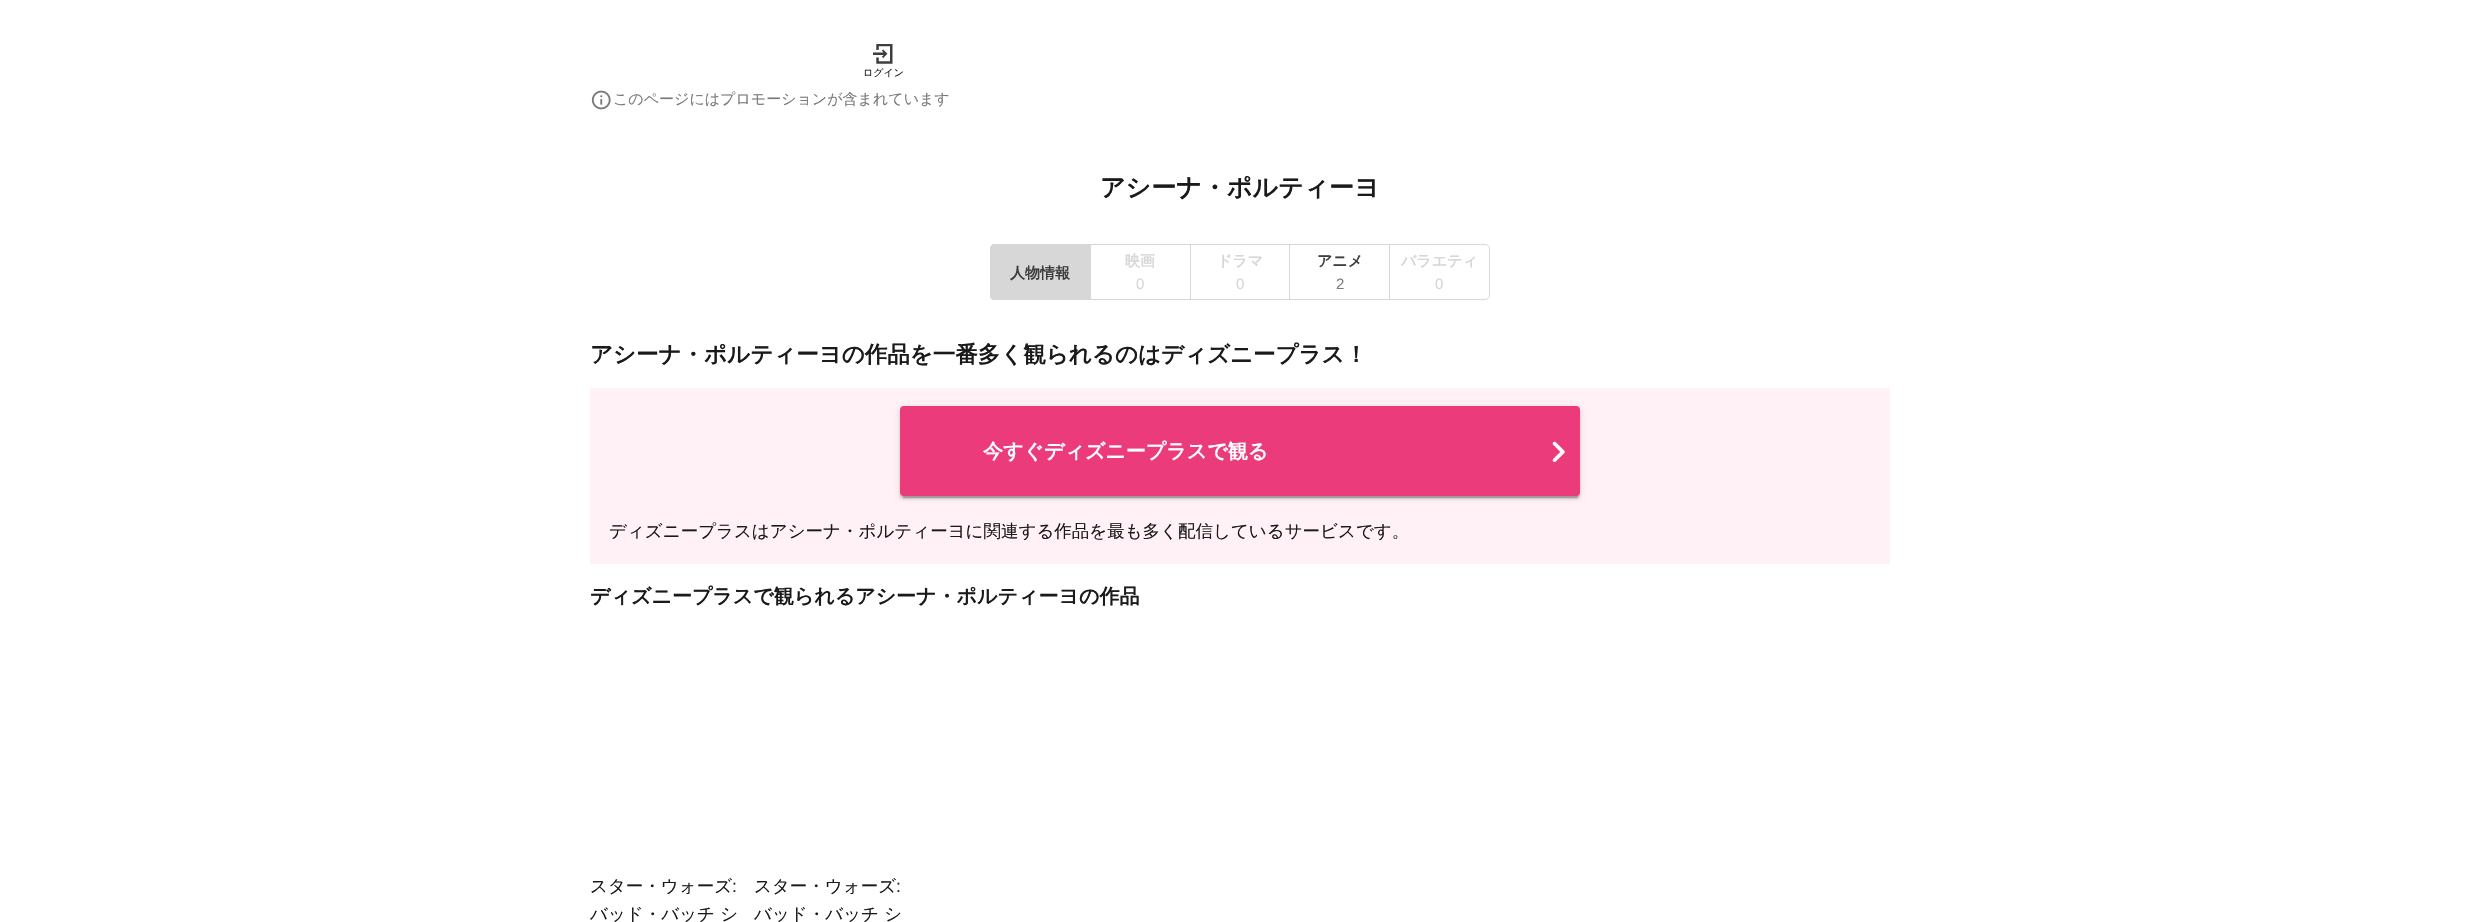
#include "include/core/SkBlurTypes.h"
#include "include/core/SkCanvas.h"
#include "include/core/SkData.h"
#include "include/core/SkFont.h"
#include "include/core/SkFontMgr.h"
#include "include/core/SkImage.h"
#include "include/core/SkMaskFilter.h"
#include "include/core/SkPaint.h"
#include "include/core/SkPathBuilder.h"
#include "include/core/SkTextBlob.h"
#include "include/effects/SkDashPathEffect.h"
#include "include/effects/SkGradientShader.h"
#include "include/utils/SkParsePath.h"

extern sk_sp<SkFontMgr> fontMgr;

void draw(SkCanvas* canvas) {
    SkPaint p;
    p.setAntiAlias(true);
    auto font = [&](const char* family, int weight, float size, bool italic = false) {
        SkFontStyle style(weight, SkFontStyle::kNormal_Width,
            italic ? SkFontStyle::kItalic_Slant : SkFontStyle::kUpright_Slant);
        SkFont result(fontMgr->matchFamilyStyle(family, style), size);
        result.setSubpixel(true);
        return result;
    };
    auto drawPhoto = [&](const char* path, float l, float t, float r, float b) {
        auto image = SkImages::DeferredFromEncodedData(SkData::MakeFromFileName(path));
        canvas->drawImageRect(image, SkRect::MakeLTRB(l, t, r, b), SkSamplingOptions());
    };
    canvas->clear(0xFFFFFFFF);
    drawPhoto("media/1.png", 873, 44, 893, 64);
    auto font1 = font("WenQuanYi Zen Hei", 500, 10);
    p.setColor(0xFF1A1A1A);
    canvas->drawString("ログイン", 863, 76, font1, p);
    drawPhoto("media/2.png", 591, 90, 611, 110);
    auto font2 = font("WenQuanYi Zen Hei", 500, 15);
    p.setColor(0xFF7A7A7A);
    canvas->drawString("このページにはプロモーションが含まれています", 613, 104, font2, p);
    auto font3 = font("WenQuanYi Zen Hei", 700, 25);
    p.setColor(0xFF1A1A1A);
    canvas->drawString("アシーナ・ポルティーヨ", 1100, 196, font3, p);
    p.setColor(0xFFD7D7D7);
    canvas->drawPath(SkPathBuilder().moveTo(995, 244).lineTo(1091, 244).lineTo(1091, 300).lineTo(995, 300).cubicTo(992, 300, 990, 298, 990, 295).lineTo(990, 249).cubicTo(990, 246, 992, 244, 995, 244).close().detach(), p);
    canvas->drawPath(SkPathBuilder().moveTo(995, 244).cubicTo(994, 244, 992, 244, 992, 245).lineTo(992, 246).lineTo(995, 245).lineTo(1090, 245).lineTo(1091, 244).close().detach(), p);
    canvas->drawPath(SkPathBuilder().moveTo(995, 300).lineTo(1091, 300).lineTo(1090, 299).lineTo(995, 299).lineTo(992, 298).lineTo(991, 299).cubicTo(992, 300, 994, 300, 995, 300).close().detach(), p);
    canvas->drawPath(SkPathBuilder().moveTo(990, 249).lineTo(990, 295).cubicTo(990, 296, 990, 298, 991, 299).lineTo(992, 298).lineTo(991, 295).lineTo(991, 249).lineTo(992, 246).lineTo(992, 245).cubicTo(991, 246, 990, 247, 990, 249).close().detach(), p);
    auto font4 = font("WenQuanYi Zen Hei", 700, 15);
    p.setColor(0xFF3E3E3E);
    canvas->drawString("人物情報", 1010, 278, font4, p);
    p.setColor(0xFFD7D7D7);
    canvas->drawPath(SkPathBuilder().moveTo(1090, 244).lineTo(1191, 244).lineTo(1190, 245).lineTo(1091, 245).close().detach(), p);
    canvas->drawPath(SkPathBuilder().moveTo(1191, 300).lineTo(1090, 300).lineTo(1091, 299).lineTo(1190, 299).close().detach(), p);
    canvas->drawString("映画", 1125, 266, font4, p);
    auto font5 = font("Liberation Sans", 400, 15);
    canvas->drawString("0", 1136, 289, font5, p);
    canvas->drawPath(SkPathBuilder().moveTo(1190, 244).lineTo(1290, 244).lineTo(1289, 245).lineTo(1191, 245).close().detach(), p);
    canvas->drawPath(SkPathBuilder().moveTo(1290, 300).lineTo(1190, 300).lineTo(1191, 299).lineTo(1289, 299).close().detach(), p);
    canvas->drawRect(SkRect::MakeLTRB(1190, 244, 1191, 300), p);
    canvas->drawString("ドラマ", 1217, 266, font4, p);
    canvas->drawString("0", 1236, 289, font5, p);
    canvas->drawPath(SkPathBuilder().moveTo(1289, 244).lineTo(1390, 244).lineTo(1389, 245).lineTo(1290, 245).close().detach(), p);
    canvas->drawPath(SkPathBuilder().moveTo(1390, 300).lineTo(1289, 300).lineTo(1290, 299).lineTo(1389, 299).close().detach(), p);
    canvas->drawRect(SkRect::MakeLTRB(1289, 244, 1290, 300), p);
    p.setColor(0xFF3E3E3E);
    canvas->drawString("アニメ", 1317, 266, font4, p);
    p.setColor(0xFF7A7A7A);
    canvas->drawString("2", 1336, 289, font5, p);
    p.setColor(0xFFFFFFFF);
    canvas->drawPath(SkPathBuilder().moveTo(1389.5f, 244.5f).lineTo(1485, 244.5f).cubicTo(1487.5f, 244.5f, 1489.5f, 246.5f, 1489.5f, 249).lineTo(1489.5f, 295).cubicTo(1489.5f, 297.5f, 1487.5f, 299.5f, 1485, 299.5f).lineTo(1389.5f, 299.5f).close().detach(), p);
    p.setStyle(SkPaint::kStroke_Style);
    p.setStrokeWidth(1);
    p.setColor(0xFFD7D7D7);
    canvas->drawPath(SkPathBuilder().moveTo(1389.5f, 244.5f).lineTo(1485, 244.5f).cubicTo(1487.5f, 244.5f, 1489.5f, 246.5f, 1489.5f, 249).lineTo(1489.5f, 295).cubicTo(1489.5f, 297.5f, 1487.5f, 299.5f, 1485, 299.5f).lineTo(1389.5f, 299.5f).close().detach(), p);
    p.setStyle(SkPaint::kFill_Style);
    canvas->drawString("バラエティ", 1401, 266, font4, p);
    canvas->drawString("0", 1435, 289, font5, p);
    auto font6 = font("WenQuanYi Zen Hei", 700, 22.5f);
    p.setColor(0xFF1A1A1A);
    canvas->drawString("アシーナ・ポルティーヨの作品を一番多く観られるのはディズニープラス！", 590, 362, font6, p);
    p.setColor(0xFFFFF1F6);
    canvas->drawRect(SkRect::MakeLTRB(590, 388, 1890, 564), p);
    p.setColor(0x1F000000);
    p.setMaskFilter(SkMaskFilter::MakeBlur(kNormal_SkBlurStyle, 3));
    canvas->drawRoundRect(SkRect::MakeLTRB(900, 408, 1580, 498), 4, 4, p);
    p.setMaskFilter(nullptr);
    p.setColor(0x24000000);
    p.setMaskFilter(SkMaskFilter::MakeBlur(kNormal_SkBlurStyle, 1));
    canvas->drawRoundRect(SkRect::MakeLTRB(900, 409, 1580, 499), 4, 4, p);
    p.setMaskFilter(nullptr);
    p.setColor(0x33000000);
    p.setMaskFilter(SkMaskFilter::MakeBlur(kNormal_SkBlurStyle, 0.5f));
    canvas->drawRoundRect(SkRect::MakeLTRB(903, 413, 1578, 498), 1, 1, p);
    p.setMaskFilter(nullptr);
    p.setColor(0xFFEB3B7A);
    canvas->drawRoundRect(SkRect::MakeLTRB(900, 406, 1580, 496), 4, 4, p);
    auto font7 = font("WenQuanYi Zen Hei", 700, 20);
    p.setColor(0xFFFFFFFF);
    canvas->drawString("今すぐディズニープラスで観る", 983, 458, font7, p);
    drawPhoto("media/3.png", 1552, 441, 1565, 462);
    auto font8 = font("WenQuanYi Zen Hei", 500, 17.5f);
    p.setColor(0xFF1A1A1A);
    canvas->drawString("ディズニープラスはアシーナ・ポルティーヨに関連する作品を最も多く配信しているサービスです。", 609, 537, font8, p);
    canvas->drawString("ディズニープラスで観られるアシーナ・ポルティーヨの作品", 590, 603, font7, p);
    canvas->drawString("スター・ウォーズ", 590, 892, font8, p);
    auto font9 = font("Liberation Sans", 400, 17.5f);
    canvas->drawString(":", 732, 892, font9, p);
    canvas->drawString("バッド・バッチ シ", 590, 920, font8, p);
    canvas->drawString("スター・ウォーズ", 754, 892, font8, p);
    canvas->drawString(":", 896, 892, font9, p);
    canvas->drawString("バッド・バッチ シ", 754, 920, font8, p);
}
